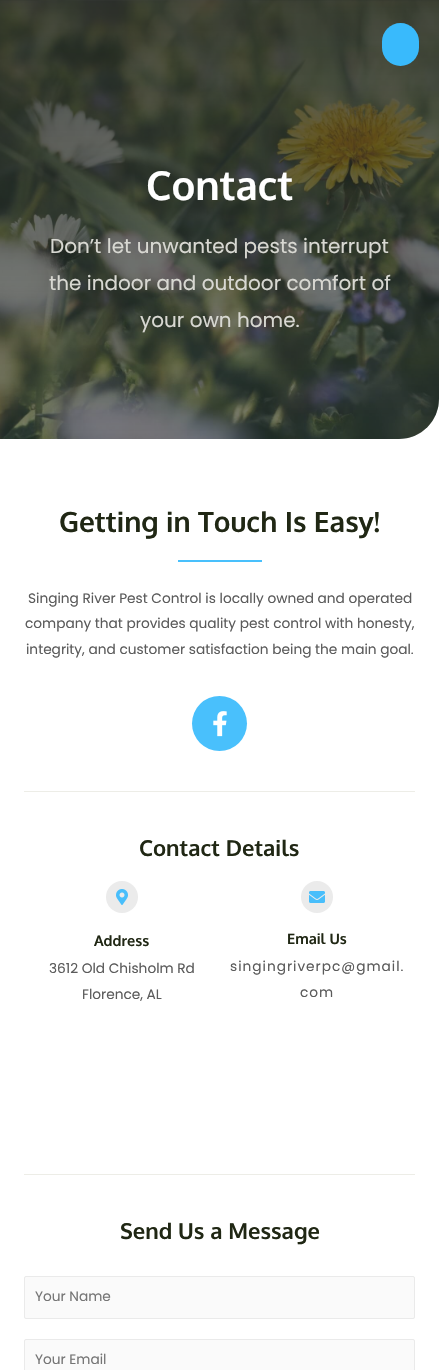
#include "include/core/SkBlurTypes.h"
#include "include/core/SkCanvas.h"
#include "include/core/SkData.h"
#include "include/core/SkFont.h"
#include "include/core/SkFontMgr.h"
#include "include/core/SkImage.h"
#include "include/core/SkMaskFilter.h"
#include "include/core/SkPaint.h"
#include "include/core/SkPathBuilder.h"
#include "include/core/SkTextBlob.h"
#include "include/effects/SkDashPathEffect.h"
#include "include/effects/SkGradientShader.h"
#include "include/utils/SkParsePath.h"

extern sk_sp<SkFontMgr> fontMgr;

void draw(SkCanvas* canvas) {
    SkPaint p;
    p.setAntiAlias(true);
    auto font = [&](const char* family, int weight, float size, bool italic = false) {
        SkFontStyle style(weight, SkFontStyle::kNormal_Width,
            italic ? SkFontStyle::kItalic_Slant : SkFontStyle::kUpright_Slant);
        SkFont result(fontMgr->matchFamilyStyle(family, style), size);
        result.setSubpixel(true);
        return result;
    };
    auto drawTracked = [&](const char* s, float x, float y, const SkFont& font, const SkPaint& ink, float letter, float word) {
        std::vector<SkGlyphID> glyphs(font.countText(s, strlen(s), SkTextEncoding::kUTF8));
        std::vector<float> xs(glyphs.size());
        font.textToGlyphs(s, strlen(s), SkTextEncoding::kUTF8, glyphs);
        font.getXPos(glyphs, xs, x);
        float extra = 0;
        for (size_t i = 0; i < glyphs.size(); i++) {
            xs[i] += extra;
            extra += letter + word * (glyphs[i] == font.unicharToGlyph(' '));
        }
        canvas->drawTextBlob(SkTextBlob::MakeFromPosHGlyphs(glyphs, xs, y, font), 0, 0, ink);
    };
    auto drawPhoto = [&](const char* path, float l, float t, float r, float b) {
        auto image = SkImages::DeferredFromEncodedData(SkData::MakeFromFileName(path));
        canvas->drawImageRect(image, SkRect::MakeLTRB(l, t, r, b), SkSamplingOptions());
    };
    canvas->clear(0xFFFFFFFF);
    drawPhoto("media/1.png", 0, 0, 439, 439);
    {
        const SkColor colors[] = {0xCC262820, 0x7D262820};
        const float stops[] = {0, 1};
        const SkPoint ends[] = {{219, 0}, {220, 439}};
        p.setShader(SkGradientShader::MakeLinear(ends, colors, stops, 2, SkTileMode::kClamp));
        p.setAlpha(255);
    }
    canvas->drawPath(SkPathBuilder().moveTo(0, 0).lineTo(439, 0).lineTo(439, 399).cubicTo(439, 421, 421, 439, 399, 439).lineTo(0, 439).close().detach(), p);
    p.setShader(nullptr);
    p.setColor(0xFF39BAFC);
    canvas->drawRoundRect(SkRect::MakeLTRB(382, 23, 419, 66), 18.5f, 18.5f, p);
    auto font1 = font("Oxygen", 700, 40);
    p.setColor(0xFFFFFFFF);
    canvas->drawString("Contact", 146, 200, font1, p);
    auto font2 = font("Poppins", 400, 20);
    p.setColor(0xFFD8D8D2);
    {
        const struct { const char* s; float x, y; } items[] = {
            {"Don’t let unwanted pests interrupt", 50, 253},
            {"the indoor and outdoor comfort of", 49, 290},
            {"your own home.", 140, 327},
        };
        for (auto [s, x, y] : items) {
            canvas->drawString(s, x, y, font2, p);
        }
    }
    auto font3 = font("Oxygen", 700, 28);
    p.setColor(0xFF202714);
    canvas->drawString("Getting in Touch Is Easy!", 59, 532, font3, p);
    p.setColor(0xFF49C0FC);
    canvas->drawRect(SkRect::MakeLTRB(178, 560, 262, 562), p);
    auto font4 = font("Poppins", 400, 13.7f);
    p.setColor(0xFF5B5B5B);
    {
        const struct { const char* s; float x, y; } items[] = {
            {"Singing River Pest Control is locally owned and operated", 28, 603},
            {"company that provides quality pest control with honesty,", 25, 628},
            {"integrity, and customer satisfaction being the main goal.", 26, 654},
        };
        for (auto [s, x, y] : items) {
            canvas->drawString(s, x, y, font4, p);
        }
    }
    p.setColor(0xFF49C0FC);
    canvas->drawCircle(219.5f, 723.5f, 27.5f, p);
    drawPhoto("media/2.png", 213, 711, 227, 737);
    p.setColor(0xFFEDEDE7);
    canvas->drawRect(SkRect::MakeLTRB(24, 791, 415, 792), p);
    canvas->drawRect(SkRect::MakeLTRB(24, 1174, 415, 1175), p);
    auto font5 = font("Oxygen", 700, 22);
    p.setColor(0xFF202714);
    canvas->drawString("Contact Details", 139, 856, font5, p);
    p.setColor(0xFFEBEBEB);
    canvas->drawCircle(122, 897, 16, p);
    drawPhoto("media/3.png", 116, 889, 128, 905);
    auto font6 = font("Oxygen", 700, 14.5f);
    p.setColor(0xFF202714);
    canvas->drawString("Address", 94, 946, font6, p);
    p.setColor(0xFF5B5B5B);
    canvas->drawString("3612 Old Chisholm Rd", 49, 973, font4, p);
    canvas->drawString("Florence, AL", 82, 999, font4, p);
    p.setColor(0xFFEBEBEB);
    canvas->drawCircle(317, 897, 16, p);
    drawPhoto("media/4.png", 309, 891, 325, 903);
    p.setColor(0xFF202714);
    canvas->drawString("Email Us", 287, 944, font6, p);
    p.setColor(0xFF5B5B5B);
    drawTracked("singingriverpc@gmail.", 230, 971, font4, p, 1, 0);
    drawTracked("com", 300, 997, font4, p, 1, 0);
    p.setColor(0xFF202714);
    canvas->drawString("Send Us a Message", 120, 1239, font5, p);
    p.setColor(0xFFFAFAFA);
    canvas->drawRoundRect(SkRect::MakeLTRB(24.5f, 1276.5f, 414.5f, 1318.5f), 1.5f, 1.5f, p);
    p.setStyle(SkPaint::kStroke_Style);
    p.setStrokeWidth(1);
    p.setColor(0xFFEAEAEA);
    canvas->drawRoundRect(SkRect::MakeLTRB(24.5f, 1276.5f, 414.5f, 1318.5f), 1.5f, 1.5f, p);
    p.setStyle(SkPaint::kFill_Style);
    p.setColor(0xFF757575);
    canvas->drawString("Your Name", 35, 1301, font4, p);
    p.setColor(0xFFFAFAFA);
    canvas->drawRoundRect(SkRect::MakeLTRB(24.5f, 1339.5f, 414.5f, 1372.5f), 1.5f, 1.5f, p);
    p.setStyle(SkPaint::kStroke_Style);
    p.setColor(0xFFEAEAEA);
    canvas->drawRoundRect(SkRect::MakeLTRB(24.5f, 1339.5f, 414.5f, 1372.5f), 1.5f, 1.5f, p);
    p.setStyle(SkPaint::kFill_Style);
    p.setColor(0xFF757575);
    canvas->drawString("Your Email", 35, 1364, font4, p);
}
